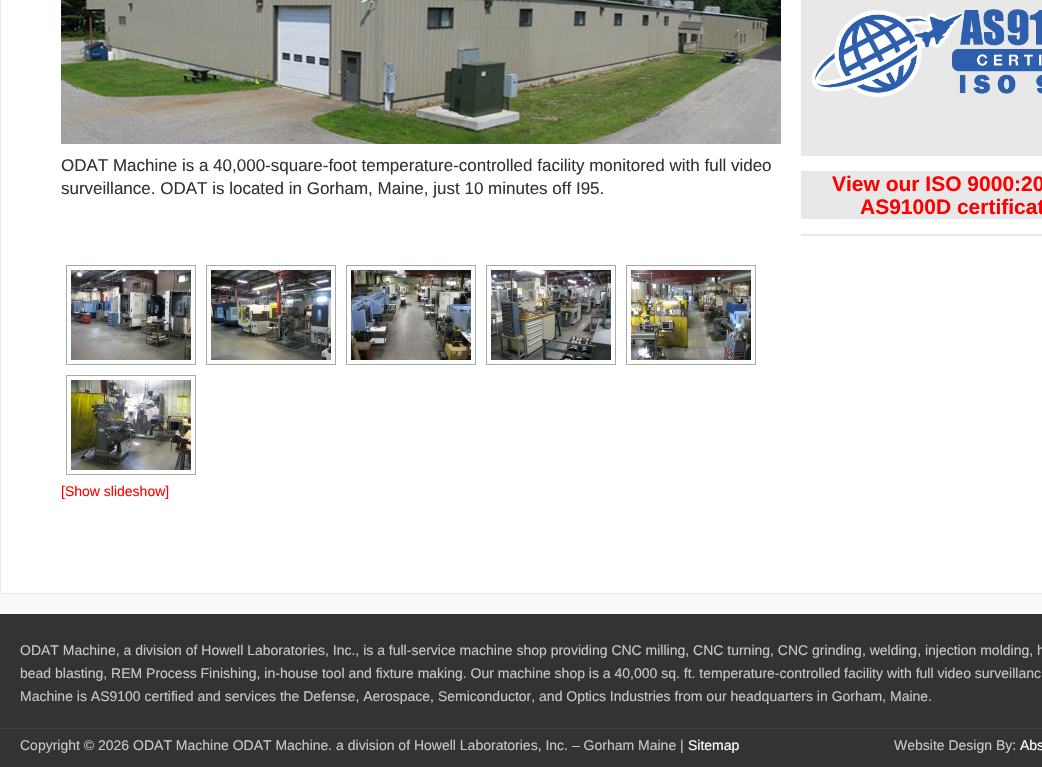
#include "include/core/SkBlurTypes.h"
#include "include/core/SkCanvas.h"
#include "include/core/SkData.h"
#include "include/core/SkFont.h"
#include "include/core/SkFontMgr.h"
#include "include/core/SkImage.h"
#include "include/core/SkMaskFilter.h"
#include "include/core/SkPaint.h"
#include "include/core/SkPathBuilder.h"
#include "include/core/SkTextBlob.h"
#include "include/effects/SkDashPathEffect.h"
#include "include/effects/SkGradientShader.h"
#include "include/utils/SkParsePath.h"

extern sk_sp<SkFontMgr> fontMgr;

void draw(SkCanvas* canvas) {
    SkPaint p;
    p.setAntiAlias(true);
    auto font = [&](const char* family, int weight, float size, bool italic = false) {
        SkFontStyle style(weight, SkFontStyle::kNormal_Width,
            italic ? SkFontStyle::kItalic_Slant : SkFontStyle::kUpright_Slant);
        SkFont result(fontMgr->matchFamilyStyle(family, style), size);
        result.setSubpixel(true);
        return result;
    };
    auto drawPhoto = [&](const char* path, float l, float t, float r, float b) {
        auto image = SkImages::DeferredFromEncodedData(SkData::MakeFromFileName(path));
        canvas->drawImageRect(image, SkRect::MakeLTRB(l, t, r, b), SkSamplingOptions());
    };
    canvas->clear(0xFFFAFAFA);
    p.setColor(0xFFFFFFFF);
    canvas->drawRect(SkRect::MakeLTRB(0.5f, -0.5f, 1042.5f, 593.5f), p);
    p.setStyle(SkPaint::kStroke_Style);
    p.setStrokeWidth(1);
    p.setColor(0xFFE8E8E8);
    canvas->drawRect(SkRect::MakeLTRB(0.5f, -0.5f, 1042.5f, 593.5f), p);
    drawPhoto("media/1.png", 61, 0, 781, 144);
    auto font1 = font("Liberation Sans", 400, 17);
    p.setStyle(SkPaint::kFill_Style);
    p.setColor(0xFF333333);
    canvas->drawString("ODAT Machine is a 40,000-square-foot temperature-controlled facility monitored with full video", 61, 171, font1, p);
    canvas->drawString("surveillance. ODAT is located in Gorham, Maine, just 10 minutes off I95.", 61, 194, font1, p);
    p.setStyle(SkPaint::kStroke_Style);
    p.setColor(0xFFA9A9A9);
    canvas->drawRect(SkRect::MakeLTRB(66.5f, 265.5f, 195.5f, 364.5f), p);
    drawPhoto("media/2.png", 71, 270, 191, 360);
    canvas->drawRect(SkRect::MakeLTRB(206.5f, 265.5f, 335.5f, 364.5f), p);
    drawPhoto("media/3.png", 211, 270, 331, 360);
    canvas->drawRect(SkRect::MakeLTRB(346.5f, 265.5f, 475.5f, 364.5f), p);
    drawPhoto("media/4.png", 351, 270, 471, 360);
    canvas->drawRect(SkRect::MakeLTRB(486.5f, 265.5f, 615.5f, 364.5f), p);
    drawPhoto("media/5.png", 491, 270, 611, 360);
    canvas->drawRect(SkRect::MakeLTRB(626.5f, 265.5f, 755.5f, 364.5f), p);
    drawPhoto("media/6.png", 631, 270, 751, 360);
    canvas->drawRect(SkRect::MakeLTRB(66.5f, 375.5f, 195.5f, 474.5f), p);
    drawPhoto("media/7.png", 71, 380, 191, 470);
    auto font2 = font("Liberation Sans", 400, 14);
    p.setStyle(SkPaint::kFill_Style);
    p.setColor(0xFFFF0000);
    canvas->drawString("[Show slideshow]", 61, 496, font2, p);
    p.setColor(0xFFE8E8E8);
    canvas->drawRect(SkRect::MakeLTRB(801, 0, 1042, 156), p);
    drawPhoto("media/8.png", 811, 9, 1042, 97);
    canvas->drawRect(SkRect::MakeLTRB(801, 171, 1042, 219), p);
    auto font3 = font("Liberation Sans", 700, 21);
    p.setColor(0xFFFF0000);
    canvas->drawString("View our ISO 9000:20", 832, 191, font3, p);
    canvas->drawString("AS9100D certificat", 860, 214, font3, p);
    {
        const struct { float l, t, r, b; SkColor color; } items[] = {
            {801, 234, 1042, 236, 0xFFE8E8E8},
            {0, 614, 1042, 767, 0xFF333333},
            {0, 728, 1042, 729, 0xFF424242},
        };
        for (auto [l, t, r, b, color] : items) {
            p.setColor(color);
            canvas->drawRect(SkRect::MakeLTRB(l, t, r, b), p);
        }
    }
    p.setColor(0xFFC7C7C7);
    {
        const struct { const char* s; float x, y; } items[] = {
            {"ODAT Machine, a division of Howell Laboratories, Inc., is a full-service machine shop providing CNC milling, CNC turning, CNC grinding, welding, injection molding, h", 20, 655},
            {"bead blasting, REM Process Finishing, in-house tool and fixture making. Our machine shop is a 40,000 sq. ft. temperature-controlled facility with full video surveillanc", 20, 678},
            {"Machine is AS9100 certified and services the Defense, Aerospace, Semiconductor, and Optics Industries from our headquarters in Gorham, Maine.", 20, 701},
            {"Copyright © 2026 ODAT Machine ODAT Machine. a division of Howell Laboratories, Inc. – Gorham Maine |", 20, 750},
        };
        for (auto [s, x, y] : items) {
            canvas->drawString(s, x, y, font2, p);
        }
    }
    p.setColor(0xFFFFFFFF);
    canvas->drawString("Sitemap", 688, 750, font2, p);
    p.setColor(0xFFC7C7C7);
    canvas->drawString("Website Design By:", 894, 750, font2, p);
    p.setColor(0xFFFFFFFF);
    canvas->drawString("Abs", 1020, 750, font2, p);
}
